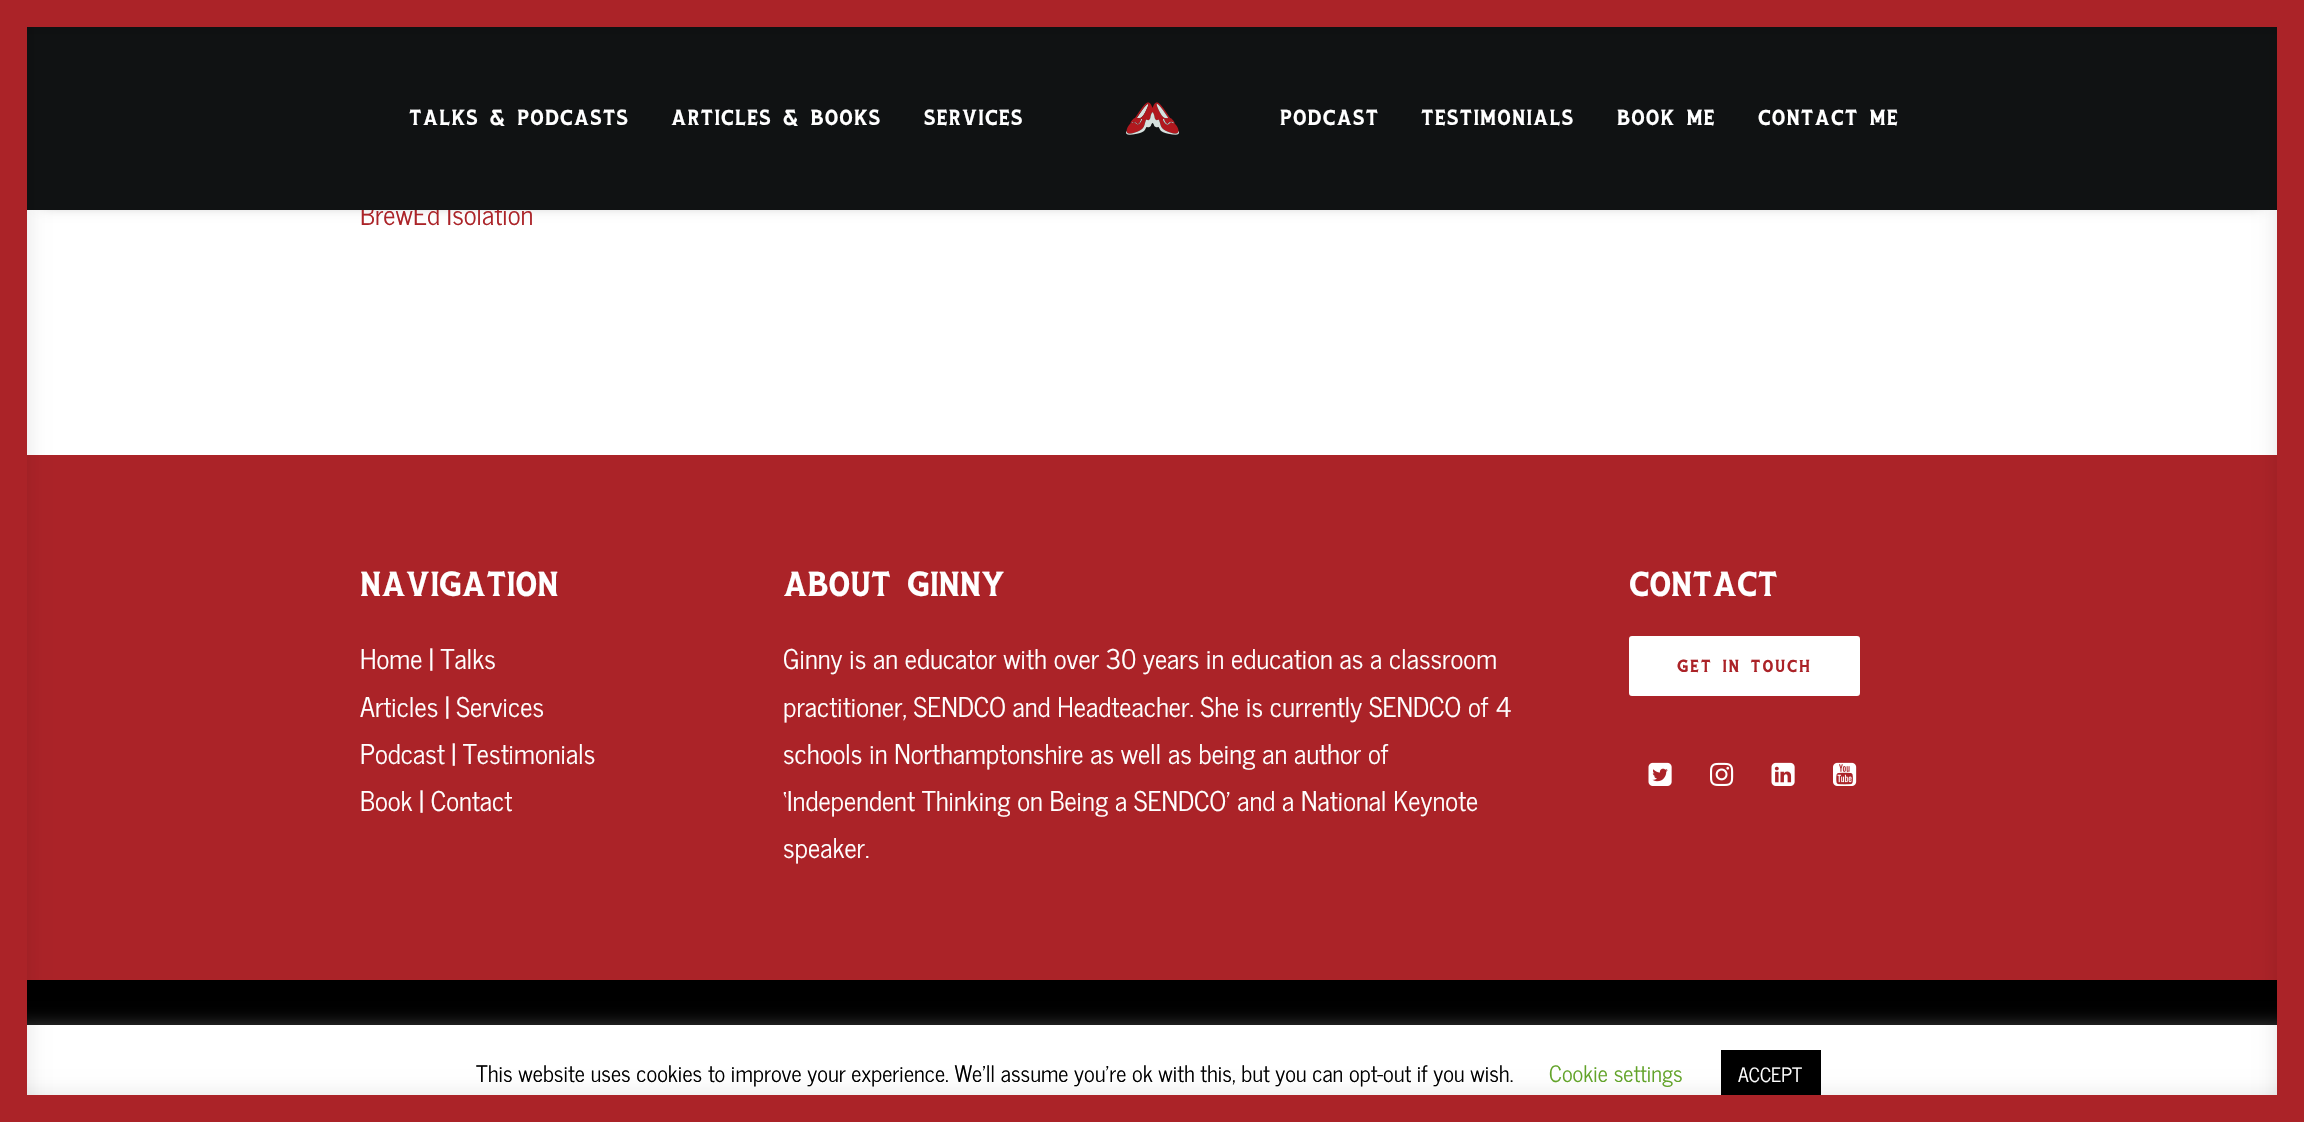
#include "include/core/SkBlurTypes.h"
#include "include/core/SkCanvas.h"
#include "include/core/SkData.h"
#include "include/core/SkFont.h"
#include "include/core/SkFontMgr.h"
#include "include/core/SkImage.h"
#include "include/core/SkMaskFilter.h"
#include "include/core/SkPaint.h"
#include "include/core/SkPathBuilder.h"
#include "include/core/SkTextBlob.h"
#include "include/effects/SkDashPathEffect.h"
#include "include/effects/SkGradientShader.h"
#include "include/utils/SkParsePath.h"

extern sk_sp<SkFontMgr> fontMgr;

void draw(SkCanvas* canvas) {
    SkPaint p;
    p.setAntiAlias(true);
    auto font = [&](const char* family, int weight, float size, bool italic = false) {
        SkFontStyle style(weight, SkFontStyle::kNormal_Width,
            italic ? SkFontStyle::kItalic_Slant : SkFontStyle::kUpright_Slant);
        SkFont result(fontMgr->matchFamilyStyle(family, style), size);
        result.setSubpixel(true);
        return result;
    };
    auto drawTracked = [&](const char* s, float x, float y, const SkFont& font, const SkPaint& ink, float letter, float word) {
        std::vector<SkGlyphID> glyphs(font.countText(s, strlen(s), SkTextEncoding::kUTF8));
        std::vector<float> xs(glyphs.size());
        font.textToGlyphs(s, strlen(s), SkTextEncoding::kUTF8, glyphs);
        font.getXPos(glyphs, xs, x);
        float extra = 0;
        for (size_t i = 0; i < glyphs.size(); i++) {
            xs[i] += extra;
            extra += letter + word * (glyphs[i] == font.unicharToGlyph(' '));
        }
        canvas->drawTextBlob(SkTextBlob::MakeFromPosHGlyphs(glyphs, xs, y, font), 0, 0, ink);
    };
    auto drawPhoto = [&](const char* path, float l, float t, float r, float b) {
        auto image = SkImages::DeferredFromEncodedData(SkData::MakeFromFileName(path));
        canvas->drawImageRect(image, SkRect::MakeLTRB(l, t, r, b), SkSamplingOptions());
    };
    canvas->clear(0xFFFFFFFF);
    p.setColor(0x99000000);
    p.setMaskFilter(SkMaskFilter::MakeBlur(kNormal_SkBlurStyle, 7.5f));
    canvas->drawRect(SkRect::MakeLTRB(42, 48, 2262, 201), p);
    p.setMaskFilter(nullptr);
    auto font1 = font("News Cycle", 400, 27);
    p.setColor(0xFFAB2328);
    canvas->drawString("BrewEd Isolation", 360, 225, font1, p);
    p.setColor(0xFF101213);
    canvas->drawRect(SkRect::MakeLTRB(27, 27, 2277, 210), p);
    p.setColor(0x1A000000);
    p.setMaskFilter(SkMaskFilter::MakeBlur(kNormal_SkBlurStyle, 10.5f));
    canvas->drawRect(SkRect::MakeLTRB(0, 0, 2304, 27), p);
    p.setMaskFilter(nullptr);
    p.setColor(0xFFAB2328);
    canvas->drawRect(SkRect::MakeLTRB(27, 455, 2277, 980), p);
    p.setColor(0xFF000000);
    canvas->drawRect(SkRect::MakeLTRB(27, 980, 2277, 1025), p);
    p.setColor(0x4DACABAB);
    p.setMaskFilter(SkMaskFilter::MakeBlur(kNormal_SkBlurStyle, 7.5f));
    canvas->drawRect(SkRect::MakeLTRB(0, 1023, 2304, 1121), p);
    p.setMaskFilter(nullptr);
    p.setColor(0xFFFFFFFF);
    canvas->drawRect(SkRect::MakeLTRB(27, 1025, 2277, 1095), p);
    p.setColor(0x1A000000);
    p.setMaskFilter(SkMaskFilter::MakeBlur(kNormal_SkBlurStyle, 10.5f));
    canvas->drawRect(SkRect::MakeLTRB(0, 0, 27, 1122), p);
    p.setMaskFilter(nullptr);
    p.setColor(0xFF000000);
    canvas->drawRect(SkRect::MakeLTRB(1721, 1050, 1821, 1095), p);
    p.setColor(0x1A000000);
    p.setMaskFilter(SkMaskFilter::MakeBlur(kNormal_SkBlurStyle, 10.5f));
    canvas->drawRect(SkRect::MakeLTRB(0, 1095, 2304, 1122), p);
    p.setMaskFilter(nullptr);
    p.setColor(0xFFAB2328);
    canvas->drawRect(SkRect::MakeLTRB(0, 0, 27, 1122), p);
    p.setColor(0x1A000000);
    p.setMaskFilter(SkMaskFilter::MakeBlur(kNormal_SkBlurStyle, 10.5f));
    canvas->drawRect(SkRect::MakeLTRB(2277, 0, 2304, 1122), p);
    p.setMaskFilter(nullptr);
    {
        const struct { float l, t, r, b; SkColor color; } items[] = {
            {27, 0, 2277, 27, 0xFFAB2328},
            {2277, 0, 2304, 1095, 0xFFAB2328},
            {27, 1095, 2304, 1122, 0xFFAB2328},
        };
        for (auto [l, t, r, b, color] : items) {
            p.setColor(color);
            canvas->drawRect(SkRect::MakeLTRB(l, t, r, b), p);
        }
    }
    auto font2 = font("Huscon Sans", 400, 22.5f);
    p.setColor(0xFFFFFFFF);
    {
        const struct { const char* s; float x, y; } items[] = {
            {"TALKS & PODCASTS", 409, 125},
            {"ARTICLES & BOOKS", 671, 125},
            {"SERVICES", 924, 125},
        };
        for (auto [s, x, y] : items) {
            drawTracked(s, x, y, font2, p, 1.1f, 0);
        }
    }
    drawPhoto("media/1.png", 1126, 102, 1179, 135);
    {
        const struct { const char* s; float x, y; } items[] = {
            {"PODCAST", 1280, 125},
            {"TESTIMONIALS", 1421, 125},
            {"BOOK ME", 1617, 125},
            {"CONTACT ME", 1758, 125},
        };
        for (auto [s, x, y] : items) {
            drawTracked(s, x, y, font2, p, 1.1f, 0);
        }
    }
    auto font3 = font("Huscon Sans", 400, 36);
    canvas->drawString("NAVIGATION", 360, 596, font3, p);
    {
        const struct { const char* s; float x, y; } items[] = {
            {"Home | Talks", 360, 669},
            {"Articles | Services", 360, 717},
            {"Podcast | Testimonials", 360, 764},
            {"Book | Contact", 360, 811},
        };
        for (auto [s, x, y] : items) {
            canvas->drawString(s, x, y, font1, p);
        }
    }
    canvas->drawString("ABOUT GINNY", 783, 596, font3, p);
    {
        const struct { const char* s; float x, y; } items[] = {
            {"Ginny is an educator with over 30 years in education as a classroom", 783, 669},
            {"practitioner, SENDCO and Headteacher. She is currently SENDCO of 4", 783, 717},
            {"schools in Northamptonshire as well as being an author of", 783, 764},
            {"‘Independent Thinking on Being a SENDCO’ and a National Keynote", 783, 811},
            {"speaker.", 783, 858},
        };
        for (auto [s, x, y] : items) {
            canvas->drawString(s, x, y, font1, p);
        }
    }
    canvas->drawString("CONTACT", 1629, 596, font3, p);
    canvas->drawRoundRect(SkRect::MakeLTRB(1630, 637, 1859, 695), 2, 2, p);
    p.setStyle(SkPaint::kStroke_Style);
    p.setStrokeWidth(2);
    canvas->drawRoundRect(SkRect::MakeLTRB(1630, 637, 1859, 695), 2, 2, p);
    auto font4 = font("Huscon Sans", 400, 18);
    p.setStyle(SkPaint::kFill_Style);
    p.setColor(0xFFAB2328);
    drawTracked("GET IN TOUCH", 1677, 672, font4, p, 1.75f, 0);
    drawPhoto("media/2.png", 1648, 762, 1672, 786);
    drawPhoto("media/3.png", 1710, 762, 1734, 786);
    drawPhoto("media/4.png", 1771, 762, 1795, 786);
    drawPhoto("media/5.png", 1833, 762, 1857, 786);
    auto font5 = font("News Cycle", 400, 22.5f);
    p.setColor(0xFF000000);
    canvas->drawString("This website uses cookies to improve your experience. We'll assume you're ok with this, but you can opt-out if you wish.", 476, 1082, font5, p);
    p.setColor(0xFF62A329);
    canvas->drawString("Cookie settings", 1549, 1082, font5, p);
    auto font6 = font("News Cycle", 400, 19.5f);
    p.setColor(0xFFFFFFFF);
    canvas->drawString("ACCEPT", 1738, 1082, font6, p);
}
